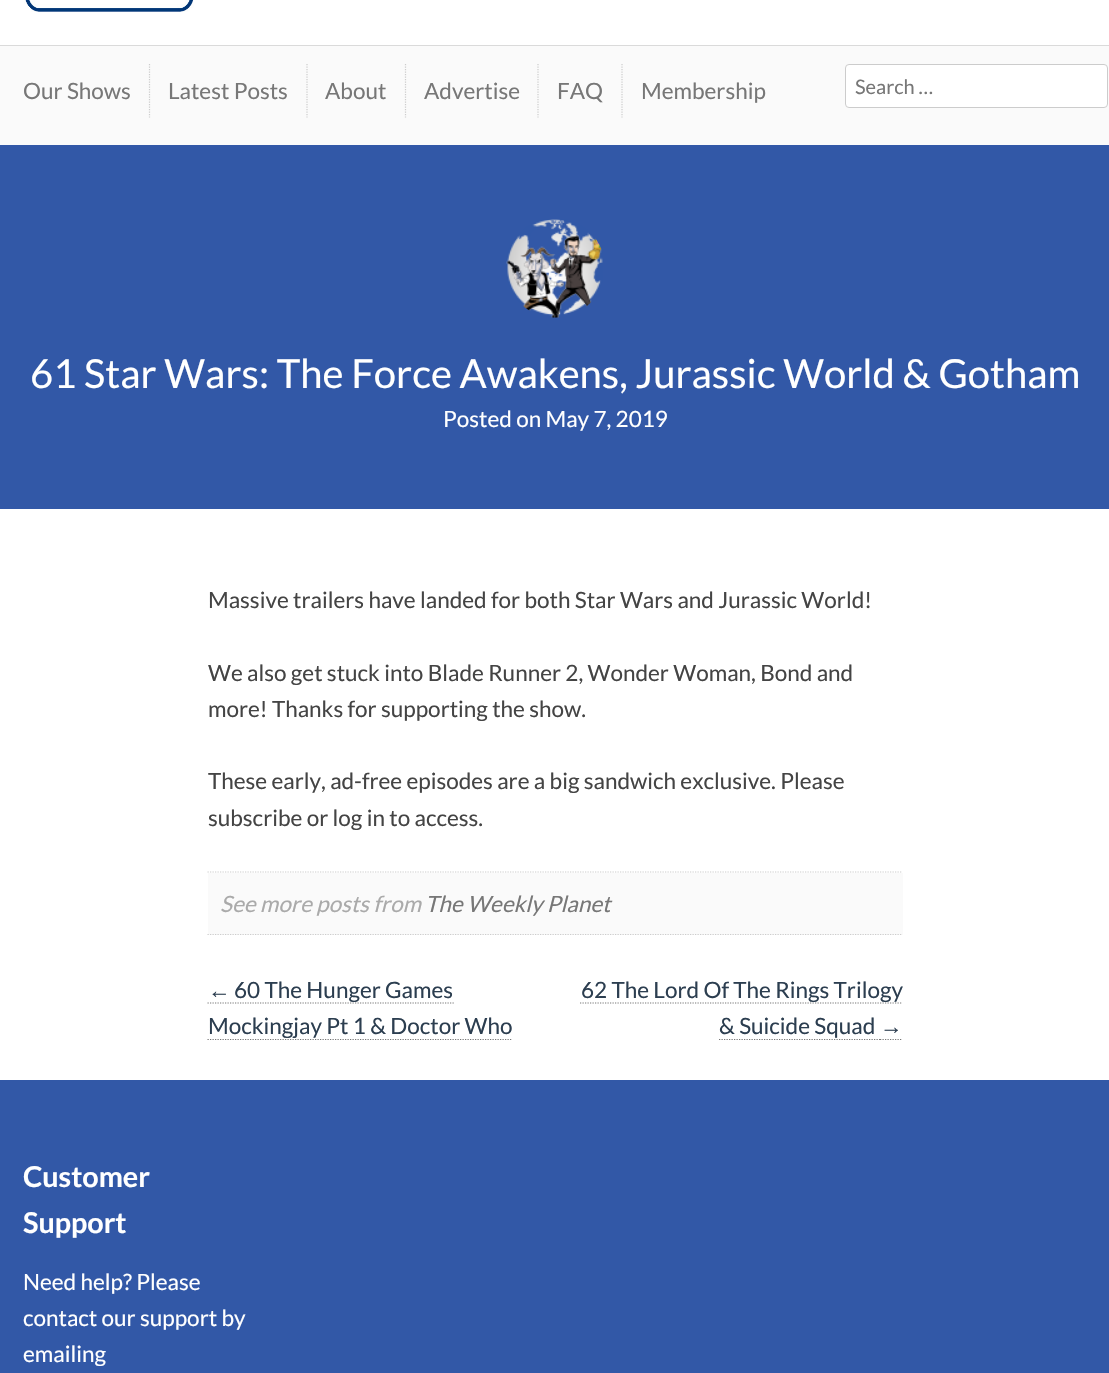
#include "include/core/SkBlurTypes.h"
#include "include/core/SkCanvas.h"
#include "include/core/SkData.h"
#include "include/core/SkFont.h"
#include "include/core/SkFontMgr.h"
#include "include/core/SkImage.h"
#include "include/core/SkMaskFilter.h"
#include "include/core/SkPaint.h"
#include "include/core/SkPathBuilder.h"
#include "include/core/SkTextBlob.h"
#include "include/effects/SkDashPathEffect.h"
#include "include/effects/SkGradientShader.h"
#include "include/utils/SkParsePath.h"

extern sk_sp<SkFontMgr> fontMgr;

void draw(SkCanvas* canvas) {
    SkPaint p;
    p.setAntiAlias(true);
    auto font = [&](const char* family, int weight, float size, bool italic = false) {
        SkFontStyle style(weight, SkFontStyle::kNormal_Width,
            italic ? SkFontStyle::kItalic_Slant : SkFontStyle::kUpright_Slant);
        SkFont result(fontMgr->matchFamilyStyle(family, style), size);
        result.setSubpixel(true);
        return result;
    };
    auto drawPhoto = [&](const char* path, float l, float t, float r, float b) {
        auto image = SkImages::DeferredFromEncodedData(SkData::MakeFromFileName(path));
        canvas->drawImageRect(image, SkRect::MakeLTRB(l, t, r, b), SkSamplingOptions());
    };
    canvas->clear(0xFFFFFFFF);
    drawPhoto("media/1.png", 24, 0, 194, 12);
    p.setColor(0xFFFAFAFA);
    canvas->drawRect(SkRect::MakeLTRB(0, 46, 1109, 145), p);
    p.setColor(0xFFDADADA);
    canvas->drawRect(SkRect::MakeLTRB(0, 45, 1109, 46), p);
    auto font1 = font("Lato", 400, 22.5f);
    p.setColor(0xFF777777);
    canvas->drawString("Our Shows", 23, 99, font1, p);
    p.setStyle(SkPaint::kStroke_Style);
    p.setStrokeWidth(1.2f);
    p.setColor(0xFFCCCCCC);
    p.setPathEffect(SkDashPathEffect::Make({{1.25f, 1.25f}}, 0));
    canvas->drawPath(SkPathBuilder().moveTo(149.5f, 64).lineTo(149.5f, 117.5f).detach(), p);
    p.setPathEffect(nullptr);
    p.setStyle(SkPaint::kFill_Style);
    p.setColor(0xFF777777);
    canvas->drawString("Latest Posts", 168, 99, font1, p);
    p.setStyle(SkPaint::kStroke_Style);
    p.setColor(0xFFCCCCCC);
    p.setPathEffect(SkDashPathEffect::Make({{1.25f, 1.25f}}, 0));
    canvas->drawPath(SkPathBuilder().moveTo(307, 64).lineTo(307, 117.5f).detach(), p);
    p.setPathEffect(nullptr);
    p.setStyle(SkPaint::kFill_Style);
    p.setColor(0xFF777777);
    canvas->drawString("About", 325, 99, font1, p);
    p.setStyle(SkPaint::kStroke_Style);
    p.setColor(0xFFCCCCCC);
    p.setPathEffect(SkDashPathEffect::Make({{1.25f, 1.25f}}, 0));
    canvas->drawPath(SkPathBuilder().moveTo(405.5f, 64).lineTo(405.5f, 117.5f).detach(), p);
    p.setPathEffect(nullptr);
    p.setStyle(SkPaint::kFill_Style);
    p.setColor(0xFF777777);
    canvas->drawString("Advertise", 424, 99, font1, p);
    p.setStyle(SkPaint::kStroke_Style);
    p.setColor(0xFFCCCCCC);
    p.setPathEffect(SkDashPathEffect::Make({{1.25f, 1.25f}}, 0));
    canvas->drawPath(SkPathBuilder().moveTo(538, 64).lineTo(538, 117.5f).detach(), p);
    p.setPathEffect(nullptr);
    p.setStyle(SkPaint::kFill_Style);
    p.setColor(0xFF777777);
    canvas->drawString("FAQ", 557, 99, font1, p);
    p.setStyle(SkPaint::kStroke_Style);
    p.setColor(0xFFCCCCCC);
    p.setPathEffect(SkDashPathEffect::Make({{1.25f, 1.25f}}, 0));
    canvas->drawPath(SkPathBuilder().moveTo(622, 64).lineTo(622, 117.5f).detach(), p);
    p.setPathEffect(nullptr);
    p.setStyle(SkPaint::kFill_Style);
    p.setColor(0xFF777777);
    canvas->drawString("Membership", 641, 99, font1, p);
    p.setColor(0xFFFFFFFF);
    canvas->drawRoundRect(SkRect::MakeLTRB(845.5f, 64.5f, 1107.5f, 107.5f), 3.5f, 3.5f, p);
    p.setStyle(SkPaint::kStroke_Style);
    p.setStrokeWidth(1);
    p.setColor(0xFFCCCCCC);
    canvas->drawRoundRect(SkRect::MakeLTRB(845.5f, 64.5f, 1107.5f, 107.5f), 3.5f, 3.5f, p);
    auto font2 = font("Lato", 400, 20);
    p.setStyle(SkPaint::kFill_Style);
    p.setColor(0xFF777777);
    canvas->drawString("Search …", 855, 94, font2, p);
    p.setColor(0xFF3258A7);
    canvas->drawRect(SkRect::MakeLTRB(0, 145, 1109, 509), p);
    drawPhoto("media/2.png", 506, 219, 603, 318);
    auto font3 = font("Lato", 400, 40);
    p.setColor(0xFFFFFFFF);
    canvas->drawString("61 Star Wars: The Force Awakens, Jurassic World & Gotham", 30, 388, font3, p);
    canvas->drawString("Posted on May 7, 2019", 443, 427, font1, p);
    p.setStyle(SkPaint::kStroke_Style);
    p.setStrokeWidth(1.2f);
    p.setColor(0xFFCCCCCC);
    p.setPathEffect(SkDashPathEffect::Make({{1.25f, 1.25f}}, 0));
    canvas->drawPath(SkPathBuilder().moveTo(207.5f, 872).lineTo(902.5f, 872).detach(), p);
    p.setPathEffect(nullptr);
    p.setStyle(SkPaint::kFill_Style);
    p.setColor(0xFF444444);
    {
        const struct { const char* s; float x, y; } items[] = {
            {"Massive trailers have landed for both Star Wars and Jurassic World!", 208, 608},
            {"We also get stuck into Blade Runner 2, Wonder Woman, Bond and", 208, 681},
            {"more! Thanks for supporting the show.", 208, 717},
            {"These early, ad-free episodes are a big sandwich exclusive. Please", 208, 789},
            {"subscribe or log in to access.", 208, 826},
        };
        for (auto [s, x, y] : items) {
            canvas->drawString(s, x, y, font1, p);
        }
    }
    p.setColor(0xFFFAFAFA);
    canvas->drawRect(SkRect::MakeLTRB(208, 873, 903, 935), p);
    p.setStyle(SkPaint::kStroke_Style);
    p.setColor(0xFFCCCCCC);
    p.setPathEffect(SkDashPathEffect::Make({{1.25f, 1.25f}}, 0));
    canvas->drawPath(SkPathBuilder().moveTo(207.5f, 934.5f).lineTo(902.5f, 934.5f).detach(), p);
    p.setPathEffect(nullptr);
    auto font4 = font("Lato", 400, 22.5f, true);
    p.setStyle(SkPaint::kFill_Style);
    p.setColor(0xFFAAAAAA);
    canvas->drawString("See more posts from", 220, 912, font4, p);
    p.setColor(0xFF777777);
    canvas->drawString("The Weekly Planet", 425, 912, font4, p);
    auto font5 = font("Liberation Sans", 400, 22.5f);
    p.setColor(0xFF2C3E50);
    canvas->drawString("←", 208, 998, font5, p);
    p.setStyle(SkPaint::kStroke_Style);
    p.setColor(0xFF777777);
    p.setPathEffect(SkDashPathEffect::Make({{1.25f, 1.25f}}, 0));
    canvas->drawPath(SkPathBuilder().moveTo(207.5f, 1003).lineTo(230, 1003).detach(), p);
    p.setPathEffect(nullptr);
    p.setPathEffect(SkDashPathEffect::Make({{1.25f, 1.25f}}, 0));
    canvas->drawPath(SkPathBuilder().moveTo(230, 1003).lineTo(454, 1003).detach(), p);
    p.setPathEffect(nullptr);
    p.setStyle(SkPaint::kFill_Style);
    p.setColor(0xFF2C3E50);
    canvas->drawString("60 The Hunger Games", 234, 998, font1, p);
    p.setStyle(SkPaint::kStroke_Style);
    p.setColor(0xFF777777);
    p.setPathEffect(SkDashPathEffect::Make({{1.25f, 1.25f}}, 0));
    canvas->drawPath(SkPathBuilder().moveTo(207.5f, 1039.5f).lineTo(512.5f, 1039.5f).detach(), p);
    p.setPathEffect(nullptr);
    p.setStyle(SkPaint::kFill_Style);
    p.setColor(0xFF2C3E50);
    canvas->drawString("Mockingjay Pt 1 & Doctor Who", 208, 1034, font1, p);
    p.setStyle(SkPaint::kStroke_Style);
    p.setColor(0xFF777777);
    p.setPathEffect(SkDashPathEffect::Make({{1.25f, 1.25f}}, 0));
    canvas->drawPath(SkPathBuilder().moveTo(580, 1003).lineTo(902.5f, 1003).detach(), p);
    p.setPathEffect(nullptr);
    p.setStyle(SkPaint::kFill_Style);
    p.setColor(0xFF2C3E50);
    canvas->drawString("62 The Lord Of The Rings Trilogy", 581, 998, font1, p);
    canvas->drawString("& Suicide Squad", 719, 1034, font1, p);
    canvas->drawString("→", 880, 1034, font5, p);
    p.setStyle(SkPaint::kStroke_Style);
    p.setColor(0xFF777777);
    p.setPathEffect(SkDashPathEffect::Make({{1.25f, 1.25f}}, 0));
    canvas->drawPath(SkPathBuilder().moveTo(719, 1039.5f).lineTo(880, 1039.5f).detach(), p);
    p.setPathEffect(nullptr);
    p.setPathEffect(SkDashPathEffect::Make({{1.25f, 1.25f}}, 0));
    canvas->drawPath(SkPathBuilder().moveTo(880, 1039.5f).lineTo(902.5f, 1039.5f).detach(), p);
    p.setPathEffect(nullptr);
    p.setStyle(SkPaint::kFill_Style);
    p.setColor(0xFF3258A7);
    canvas->drawRect(SkRect::MakeLTRB(0, 1080, 1109, 1373), p);
    auto font6 = font("Lato", 700, 28.75f);
    p.setColor(0xFFFFFFFF);
    canvas->drawString("Customer", 23, 1187, font6, p);
    canvas->drawString("Support", 23, 1233, font6, p);
    {
        const struct { const char* s; float x, y; } items[] = {
            {"Need help? Please", 23, 1290},
            {"contact our support by", 23, 1326},
            {"emailing", 23, 1362},
        };
        for (auto [s, x, y] : items) {
            canvas->drawString(s, x, y, font1, p);
        }
    }
}
